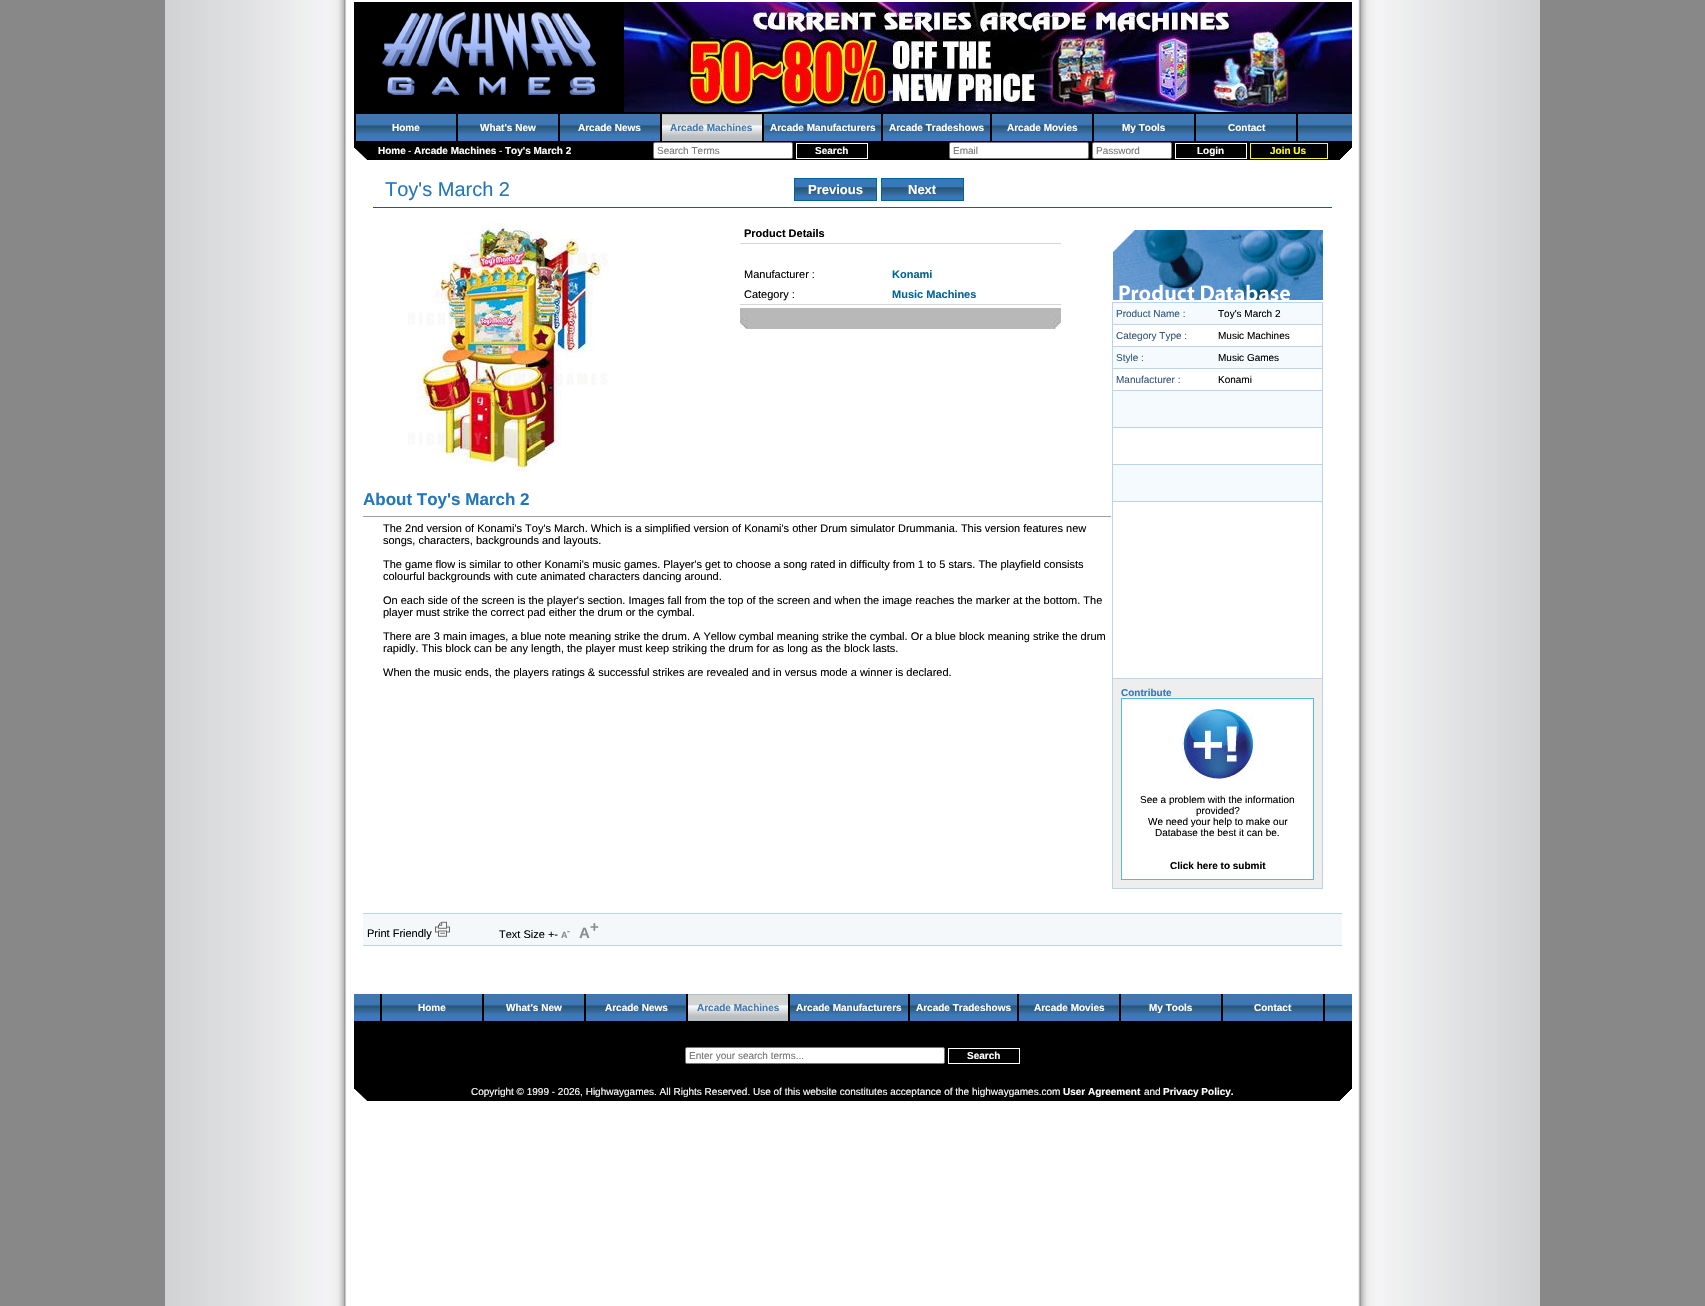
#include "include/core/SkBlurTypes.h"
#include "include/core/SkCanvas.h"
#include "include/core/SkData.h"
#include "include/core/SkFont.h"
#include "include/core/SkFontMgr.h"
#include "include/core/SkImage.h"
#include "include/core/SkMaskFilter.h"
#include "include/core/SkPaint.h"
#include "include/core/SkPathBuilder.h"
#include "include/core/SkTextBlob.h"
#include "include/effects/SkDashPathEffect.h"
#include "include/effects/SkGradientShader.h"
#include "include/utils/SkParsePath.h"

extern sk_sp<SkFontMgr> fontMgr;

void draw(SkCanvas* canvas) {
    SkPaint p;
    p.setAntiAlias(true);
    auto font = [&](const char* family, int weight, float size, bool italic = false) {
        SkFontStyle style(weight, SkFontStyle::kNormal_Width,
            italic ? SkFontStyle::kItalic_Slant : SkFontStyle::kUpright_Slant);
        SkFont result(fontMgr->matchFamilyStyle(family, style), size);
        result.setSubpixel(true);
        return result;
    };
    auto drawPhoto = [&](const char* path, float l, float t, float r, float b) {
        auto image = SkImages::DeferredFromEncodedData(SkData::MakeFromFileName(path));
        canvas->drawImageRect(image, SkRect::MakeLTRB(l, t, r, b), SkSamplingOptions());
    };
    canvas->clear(0xFF888888);
    drawPhoto("media/1.png", 165, 0, 1540, 1306);
    p.setColor(0xFF000000);
    canvas->drawRect(SkRect::MakeLTRB(354, 2, 1352, 160), p);
    drawPhoto("media/2.png", 354, 148, 367, 160);
    drawPhoto("media/3.png", 1340, 148, 1352, 160);
    drawPhoto("media/4.png", 382, 12, 596, 95);
    drawPhoto("media/5.png", 624, 2, 1352, 112);
    drawPhoto("media/6.png", 356, 114, 1352, 141);
    canvas->drawRect(SkRect::MakeLTRB(456, 114, 458, 141), p);
    auto font1 = font("Liberation Sans", 700, 10);
    p.setColor(0xFFFFFFFF);
    canvas->drawString("Home", 392, 131, font1, p);
    p.setColor(0xFF000000);
    canvas->drawRect(SkRect::MakeLTRB(558, 114, 560, 141), p);
    p.setColor(0xFFFFFFFF);
    canvas->drawString("What's New", 480, 131, font1, p);
    p.setColor(0xFF000000);
    canvas->drawRect(SkRect::MakeLTRB(660, 114, 662, 141), p);
    p.setColor(0xFFFFFFFF);
    canvas->drawString("Arcade News", 578, 131, font1, p);
    p.setColor(0xFF000000);
    canvas->drawRect(SkRect::MakeLTRB(762, 114, 764, 141), p);
    drawPhoto("media/7.png", 662, 114, 762, 141);
    p.setColor(0xFF4477AA);
    canvas->drawString("Arcade Machines", 670, 131, font1, p);
    p.setColor(0xFF000000);
    canvas->drawRect(SkRect::MakeLTRB(881, 114, 883, 141), p);
    p.setColor(0xFFFFFFFF);
    canvas->drawString("Arcade Manufacturers", 770, 131, font1, p);
    p.setColor(0xFF000000);
    canvas->drawRect(SkRect::MakeLTRB(990, 114, 992, 141), p);
    p.setColor(0xFFFFFFFF);
    canvas->drawString("Arcade Tradeshows", 889, 131, font1, p);
    p.setColor(0xFF000000);
    canvas->drawRect(SkRect::MakeLTRB(1092, 114, 1094, 141), p);
    p.setColor(0xFFFFFFFF);
    canvas->drawString("Arcade Movies", 1007, 131, font1, p);
    p.setColor(0xFF000000);
    canvas->drawRect(SkRect::MakeLTRB(1194, 114, 1196, 141), p);
    p.setColor(0xFFFFFFFF);
    canvas->drawString("My Tools", 1122, 131, font1, p);
    p.setColor(0xFF000000);
    canvas->drawRect(SkRect::MakeLTRB(1296, 114, 1298, 141), p);
    p.setColor(0xFFFFFFFF);
    canvas->drawString("Contact", 1228, 131, font1, p);
    canvas->drawString("Home", 378, 154, font1, p);
    auto font2 = font("Liberation Sans", 400, 10);
    canvas->drawString("-", 408, 154, font2, p);
    canvas->drawString("Arcade Machines", 414, 154, font1, p);
    canvas->drawString("-", 499, 154, font2, p);
    canvas->drawString("Toy's March 2", 505, 154, font1, p);
    canvas->drawRoundRect(SkRect::MakeLTRB(653.5f, 142.5f, 792.5f, 158.5f), 1.5f, 1.5f, p);
    p.setStyle(SkPaint::kStroke_Style);
    p.setStrokeWidth(1);
    p.setColor(0xFF767676);
    canvas->drawRoundRect(SkRect::MakeLTRB(653.5f, 142.5f, 792.5f, 158.5f), 1.5f, 1.5f, p);
    p.setStyle(SkPaint::kFill_Style);
    p.setColor(0xFF757575);
    canvas->drawString("Search Terms", 657, 154, font2, p);
    p.setStyle(SkPaint::kStroke_Style);
    p.setColor(0xFFFFFFFF);
    canvas->drawRect(SkRect::MakeLTRB(796.5f, 143.5f, 867.5f, 158.5f), p);
    p.setStyle(SkPaint::kFill_Style);
    canvas->drawString("Search", 815, 154, font1, p);
    canvas->drawRoundRect(SkRect::MakeLTRB(949.5f, 142.5f, 1088.5f, 158.5f), 1.5f, 1.5f, p);
    p.setStyle(SkPaint::kStroke_Style);
    p.setColor(0xFF767676);
    canvas->drawRoundRect(SkRect::MakeLTRB(949.5f, 142.5f, 1088.5f, 158.5f), 1.5f, 1.5f, p);
    p.setStyle(SkPaint::kFill_Style);
    p.setColor(0xFF757575);
    canvas->drawString("Email", 953, 154, font2, p);
    p.setColor(0xFFFFFFFF);
    canvas->drawRoundRect(SkRect::MakeLTRB(1092.5f, 142.5f, 1171.5f, 158.5f), 1.5f, 1.5f, p);
    p.setStyle(SkPaint::kStroke_Style);
    p.setColor(0xFF767676);
    canvas->drawRoundRect(SkRect::MakeLTRB(1092.5f, 142.5f, 1171.5f, 158.5f), 1.5f, 1.5f, p);
    p.setStyle(SkPaint::kFill_Style);
    p.setColor(0xFF757575);
    canvas->drawString("Password", 1096, 154, font2, p);
    p.setStyle(SkPaint::kStroke_Style);
    p.setColor(0xFFFFFFFF);
    canvas->drawRect(SkRect::MakeLTRB(1175.5f, 143.5f, 1246.5f, 158.5f), p);
    p.setStyle(SkPaint::kFill_Style);
    canvas->drawString("Login", 1197, 154, font1, p);
    p.setStyle(SkPaint::kStroke_Style);
    p.setColor(0xFFFFFF00);
    canvas->drawRect(SkRect::MakeLTRB(1250.5f, 143.5f, 1327.5f, 158.5f), p);
    p.setStyle(SkPaint::kFill_Style);
    canvas->drawString("Join Us", 1270, 154, font1, p);
    p.setColor(0xFF006699);
    canvas->drawRect(SkRect::MakeLTRB(373, 207, 1332, 208), p);
    auto font3 = font("Liberation Sans", 400, 20);
    p.setColor(0xFF2277BB);
    canvas->drawString("Toy's March 2", 385, 196, font3, p);
    drawPhoto("media/8.png", 795, 179, 876, 200);
    p.setStyle(SkPaint::kStroke_Style);
    p.setColor(0xFF006699);
    canvas->drawRect(SkRect::MakeLTRB(794.5f, 178.5f, 876.5f, 200.5f), p);
    auto font4 = font("Liberation Sans", 700, 13);
    p.setStyle(SkPaint::kFill_Style);
    p.setColor(0xFFFFFFFF);
    canvas->drawString("Previous", 808, 194, font4, p);
    drawPhoto("media/8.png", 882, 179, 963, 200);
    p.setStyle(SkPaint::kStroke_Style);
    p.setColor(0xFF006699);
    canvas->drawRect(SkRect::MakeLTRB(881.5f, 178.5f, 963.5f, 200.5f), p);
    p.setStyle(SkPaint::kFill_Style);
    p.setColor(0xFFFFFFFF);
    canvas->drawString("Next", 908, 194, font4, p);
    drawPhoto("media/9.png", 408, 223, 609, 473);
    p.setColor(0xFFD5D5D5);
    canvas->drawRect(SkRect::MakeLTRB(740, 243, 1061, 244), p);
    auto font5 = font("Liberation Sans", 700, 11);
    p.setColor(0xFF000000);
    canvas->drawString("Product Details", 744, 237, font5, p);
    auto font6 = font("Liberation Sans", 400, 11);
    canvas->drawString("Manufacturer :", 744, 278, font6, p);
    p.setColor(0xFF006699);
    canvas->drawString("Konami", 892, 278, font5, p);
    p.setColor(0xFFD5D5D5);
    canvas->drawRect(SkRect::MakeLTRB(740, 304, 1061, 305), p);
    p.setColor(0xFF000000);
    canvas->drawString("Category :", 744, 298, font6, p);
    p.setColor(0xFF006699);
    canvas->drawString("Music Machines", 892, 298, font5, p);
    drawPhoto("media/10.png", 740, 308, 1061, 329);
    auto font7 = font("Liberation Sans", 700, 17);
    p.setColor(0xFF2277BB);
    canvas->drawString("About Toy's March 2", 363, 505, font7, p);
    p.setColor(0xFF9F9F9F);
    canvas->drawRect(SkRect::MakeLTRB(363, 516, 1112, 517), p);
    p.setColor(0xFFEEEEEE);
    canvas->drawRect(SkRect::MakeLTRB(1111, 516, 1112, 517), p);
    p.setColor(0xFF000000);
    {
        const struct { const char* s; float x, y; } items[] = {
            {"The 2nd version of Konami's Toy's March. Which is a simplified version of Konami's other Drum simulator Drummania. This version features new", 383, 532},
            {"songs, characters, backgrounds and layouts.", 383, 544},
            {"The game flow is similar to other Konami's music games. Player's get to choose a song rated in difficulty from 1 to 5 stars. The playfield consists", 383, 568},
            {"colourful backgrounds with cute animated characters dancing around.", 383, 580},
            {"On each side of the screen is the player's section. Images fall from the top of the screen and when the image reaches the marker at the bottom. The", 383, 604},
            {"player must strike the correct pad either the drum or the cymbal.", 383, 616},
            {"There are 3 main images, a blue note meaning strike the drum. A Yellow cymbal meaning strike the cymbal. Or a blue block meaning strike the drum", 383, 640},
            {"rapidly. This block can be any length, the player must keep striking the drum for as long as the block lasts.", 383, 652},
            {"When the music ends, the players ratings & successful strikes are revealed and in versus mode a winner is declared.", 383, 676},
        };
        for (auto [s, x, y] : items) {
            canvas->drawString(s, x, y, font6, p);
        }
    }
    {
        const struct { float l, t, r, b; SkColor color; } items[] = {
            {1112, 390, 1323, 391, 0xFFBAD5EA},
            {1112, 427, 1323, 428, 0xFFBAD5EA},
            {1112, 464, 1323, 465, 0xFFBAD5EA},
            {1112, 501, 1323, 502, 0xFFBAD5EA},
            {1112, 678, 1323, 679, 0xFFBAD5EA},
            {1322, 678, 1323, 889, 0xFFBAD5EA},
            {1322, 501, 1323, 679, 0xFFBAD5EA},
            {1322, 464, 1323, 502, 0xFFBAD5EA},
            {1322, 427, 1323, 465, 0xFFBAD5EA},
            {1322, 302, 1323, 428, 0xFFBAD5EA},
            {1112, 888, 1323, 889, 0xFFBAD5EA},
            {1112, 678, 1113, 889, 0xFFBAD5EA},
            {1112, 501, 1113, 679, 0xFFBAD5EA},
            {1112, 464, 1113, 502, 0xFFBAD5EA},
            {1112, 427, 1113, 465, 0xFFBAD5EA},
            {1112, 368, 1113, 428, 0xFFBAD5EA},
            {1112, 368, 1323, 369, 0xFFBAD5EA},
            {1112, 346, 1113, 369, 0xFFBAD5EA},
            {1112, 346, 1323, 347, 0xFFBAD5EA},
            {1112, 324, 1113, 347, 0xFFBAD5EA},
            {1112, 324, 1323, 325, 0xFFBAD5EA},
            {1112, 302, 1113, 325, 0xFFBAD5EA},
            {1112, 302, 1323, 303, 0xFFBAD5EA},
        };
        for (auto [l, t, r, b, color] : items) {
            p.setColor(color);
            canvas->drawRect(SkRect::MakeLTRB(l, t, r, b), p);
        }
    }
    drawPhoto("media/11.png", 1113, 230, 1323, 300);
    p.setColor(0xFFF5FAFE);
    canvas->drawRect(SkRect::MakeLTRB(1113, 391, 1322, 427), p);
    canvas->drawRect(SkRect::MakeLTRB(1113, 303, 1322, 324), p);
    p.setColor(0xFF36567D);
    canvas->drawString("Product Name :", 1116, 317, font2, p);
    p.setColor(0xFF000000);
    canvas->drawString("Toy's March 2", 1218, 317, font2, p);
    p.setColor(0xFF36567D);
    canvas->drawString("Category Type :", 1116, 339, font2, p);
    p.setColor(0xFF000000);
    canvas->drawString("Music Machines", 1218, 339, font2, p);
    p.setColor(0xFFF5FAFE);
    canvas->drawRect(SkRect::MakeLTRB(1113, 347, 1322, 368), p);
    p.setColor(0xFF36567D);
    canvas->drawString("Style :", 1116, 361, font2, p);
    p.setColor(0xFF000000);
    canvas->drawString("Music Games", 1218, 361, font2, p);
    p.setColor(0xFF36567D);
    canvas->drawString("Manufacturer :", 1116, 383, font2, p);
    p.setColor(0xFF000000);
    canvas->drawString("Konami", 1218, 383, font2, p);
    p.setColor(0xFFF5FAFE);
    canvas->drawRect(SkRect::MakeLTRB(1113, 465, 1322, 501), p);
    p.setColor(0xFFEEEEEE);
    canvas->drawRect(SkRect::MakeLTRB(1113, 679, 1322, 888), p);
    p.setColor(0xFF3377BB);
    canvas->drawString("Contribute", 1121, 696, font1, p);
    p.setColor(0xFFFFFFFF);
    canvas->drawRect(SkRect::MakeLTRB(1121.5f, 698.5f, 1313.5f, 879.5f), p);
    p.setStyle(SkPaint::kStroke_Style);
    p.setColor(0xFF55BBDD);
    canvas->drawRect(SkRect::MakeLTRB(1121.5f, 698.5f, 1313.5f, 879.5f), p);
    drawPhoto("media/12.png", 1181, 707, 1253, 779);
    p.setStyle(SkPaint::kFill_Style);
    p.setColor(0xFF000000);
    {
        const struct { const char* s; float x, y; } items[] = {
            {"See a problem with the information", 1140, 803},
            {"provided?", 1196, 814},
            {"We need your help to make our", 1148, 825},
            {"Database the best it can be.", 1155, 836},
        };
        for (auto [s, x, y] : items) {
            canvas->drawString(s, x, y, font2, p);
        }
    }
    canvas->drawString("Click here to submit", 1170, 869, font1, p);
    {
        const struct { float l, t, r, b; SkColor color; } items[] = {
            {363, 914, 1342, 945, 0xFFF4F8FB},
            {363, 913, 1342, 914, 0xFFBAD5EA},
            {363, 945, 1342, 946, 0xFFBAD5EA},
        };
        for (auto [l, t, r, b, color] : items) {
            p.setColor(color);
            canvas->drawRect(SkRect::MakeLTRB(l, t, r, b), p);
        }
    }
    p.setColor(0xFF000000);
    canvas->drawString("Print Friendly", 367, 937, font6, p);
    drawPhoto("media/13.png", 435, 921, 450, 937);
    canvas->drawString("Text Size +-", 499, 938, font6, p);
    auto font8 = font("Liberation Sans", 700, 9);
    p.setColor(0xFF8C8D8F);
    canvas->drawString("A", 561, 938, font8, p);
    canvas->drawString("-", 567, 934, font8, p);
    auto font9 = font("Liberation Sans", 700, 15);
    canvas->drawString("A", 579, 938, font9, p);
    canvas->drawString("+", 590, 932, font9, p);
    p.setColor(0xFF000000);
    canvas->drawRect(SkRect::MakeLTRB(354, 1021, 1352, 1101), p);
    drawPhoto("media/2.png", 354, 1089, 367, 1101);
    drawPhoto("media/3.png", 1340, 1089, 1352, 1101);
    drawPhoto("media/14.png", 354, 994, 1352, 1021);
    canvas->drawRect(SkRect::MakeLTRB(482, 994, 484, 1021), p);
    canvas->drawRect(SkRect::MakeLTRB(380, 994, 382, 1021), p);
    p.setColor(0xFFFFFFFF);
    canvas->drawString("Home", 418, 1011, font1, p);
    p.setColor(0xFF000000);
    canvas->drawRect(SkRect::MakeLTRB(584, 994, 586, 1021), p);
    p.setColor(0xFFFFFFFF);
    canvas->drawString("What's New", 506, 1011, font1, p);
    p.setColor(0xFF000000);
    canvas->drawRect(SkRect::MakeLTRB(686, 994, 688, 1021), p);
    p.setColor(0xFFFFFFFF);
    canvas->drawString("Arcade News", 605, 1011, font1, p);
    p.setColor(0xFF000000);
    canvas->drawRect(SkRect::MakeLTRB(788, 994, 790, 1021), p);
    drawPhoto("media/7.png", 688, 994, 788, 1021);
    p.setColor(0xFF4477AA);
    canvas->drawString("Arcade Machines", 697, 1011, font1, p);
    p.setColor(0xFF000000);
    canvas->drawRect(SkRect::MakeLTRB(908, 994, 910, 1021), p);
    p.setColor(0xFFFFFFFF);
    canvas->drawString("Arcade Manufacturers", 796, 1011, font1, p);
    p.setColor(0xFF000000);
    canvas->drawRect(SkRect::MakeLTRB(1017, 994, 1019, 1021), p);
    p.setColor(0xFFFFFFFF);
    canvas->drawString("Arcade Tradeshows", 916, 1011, font1, p);
    p.setColor(0xFF000000);
    canvas->drawRect(SkRect::MakeLTRB(1119, 994, 1121, 1021), p);
    p.setColor(0xFFFFFFFF);
    canvas->drawString("Arcade Movies", 1034, 1011, font1, p);
    p.setColor(0xFF000000);
    canvas->drawRect(SkRect::MakeLTRB(1221, 994, 1223, 1021), p);
    p.setColor(0xFFFFFFFF);
    canvas->drawString("My Tools", 1149, 1011, font1, p);
    p.setColor(0xFF000000);
    canvas->drawRect(SkRect::MakeLTRB(1323, 994, 1325, 1021), p);
    p.setColor(0xFFFFFFFF);
    canvas->drawString("Contact", 1254, 1011, font1, p);
    canvas->drawRoundRect(SkRect::MakeLTRB(685.5f, 1047.5f, 944.5f, 1063.5f), 1.5f, 1.5f, p);
    p.setStyle(SkPaint::kStroke_Style);
    p.setColor(0xFF767676);
    canvas->drawRoundRect(SkRect::MakeLTRB(685.5f, 1047.5f, 944.5f, 1063.5f), 1.5f, 1.5f, p);
    p.setStyle(SkPaint::kFill_Style);
    p.setColor(0xFF757575);
    canvas->drawString("Enter your search terms...", 689, 1059, font2, p);
    p.setStyle(SkPaint::kStroke_Style);
    p.setColor(0xFFFFFFFF);
    canvas->drawRect(SkRect::MakeLTRB(948.5f, 1048.5f, 1019.5f, 1063.5f), p);
    p.setStyle(SkPaint::kFill_Style);
    canvas->drawString("Search", 967, 1059, font1, p);
    canvas->drawString("Copyright © 1999 - 2026, Highwaygames. All Rights Reserved. Use of this website constitutes acceptance of the highwaygames.com", 471, 1095, font2, p);
    canvas->drawString("User Agreement", 1063, 1095, font1, p);
    canvas->drawString("and", 1144, 1095, font2, p);
    canvas->drawString("Privacy Policy.", 1163, 1095, font1, p);
}
